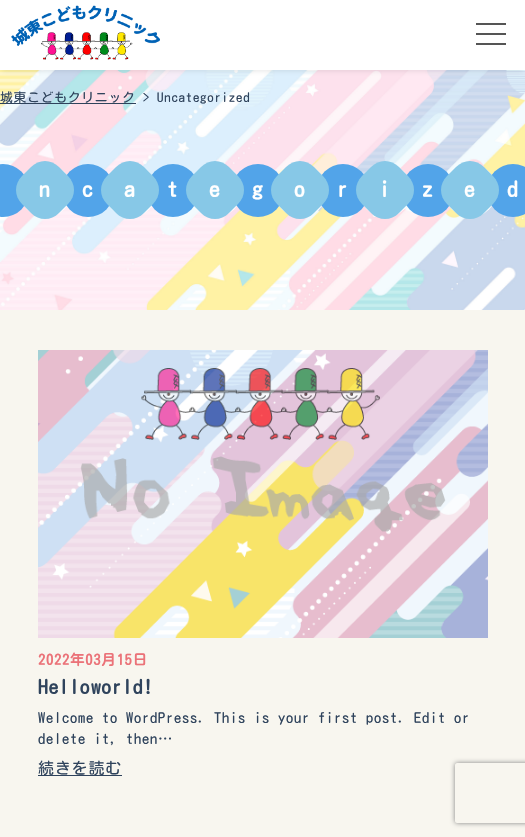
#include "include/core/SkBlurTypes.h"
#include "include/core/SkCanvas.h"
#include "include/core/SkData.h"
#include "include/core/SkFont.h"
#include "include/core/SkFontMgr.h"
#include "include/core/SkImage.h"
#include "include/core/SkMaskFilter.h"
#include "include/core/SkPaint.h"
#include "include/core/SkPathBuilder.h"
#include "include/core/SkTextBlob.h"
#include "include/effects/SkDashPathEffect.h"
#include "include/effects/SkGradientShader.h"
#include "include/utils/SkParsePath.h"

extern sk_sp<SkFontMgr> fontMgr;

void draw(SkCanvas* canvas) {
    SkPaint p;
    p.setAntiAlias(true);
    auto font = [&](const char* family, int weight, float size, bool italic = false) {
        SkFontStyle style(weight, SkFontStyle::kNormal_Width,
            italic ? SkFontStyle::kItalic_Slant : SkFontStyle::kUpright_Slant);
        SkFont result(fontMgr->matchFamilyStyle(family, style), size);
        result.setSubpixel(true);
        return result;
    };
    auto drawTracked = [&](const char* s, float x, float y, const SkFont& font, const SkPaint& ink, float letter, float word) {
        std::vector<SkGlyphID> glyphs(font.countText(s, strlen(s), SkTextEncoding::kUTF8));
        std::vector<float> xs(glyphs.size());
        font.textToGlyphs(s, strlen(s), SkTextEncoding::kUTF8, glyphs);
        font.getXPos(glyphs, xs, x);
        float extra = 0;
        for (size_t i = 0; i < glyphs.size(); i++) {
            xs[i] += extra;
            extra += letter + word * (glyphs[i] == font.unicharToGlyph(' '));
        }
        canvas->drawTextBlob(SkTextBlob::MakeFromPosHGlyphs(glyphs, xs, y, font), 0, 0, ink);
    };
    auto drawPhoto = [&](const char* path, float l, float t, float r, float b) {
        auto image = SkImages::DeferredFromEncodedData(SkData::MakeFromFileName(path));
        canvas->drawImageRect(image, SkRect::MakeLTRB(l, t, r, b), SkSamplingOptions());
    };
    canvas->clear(0xFFF8F6EF);
    drawPhoto("media/2.png", 0, 70, 525, 310);
    p.setColor(0x1A0A0A0A);
    p.setMaskFilter(SkMaskFilter::MakeBlur(kNormal_SkBlurStyle, 2.5f));
    canvas->drawRect(SkRect::MakeLTRB(2, 5, 523, 71), p);
    p.setMaskFilter(nullptr);
    p.setColor(0xFFFFFFFF);
    canvas->drawRect(SkRect::MakeLTRB(0, 0, 525, 70), p);
    drawPhoto("media/1.png", 11, 5, 160, 60);
    {
        const struct { float l, t, r, b; SkColor color; } items[] = {
            {476, 23, 506, 25, 0xFF555555},
            {476, 33, 506, 35, 0xFF555555},
            {476, 43, 506, 45, 0xFF555555},
            {0, 103, 136, 104, 0xFF2F435C},
        };
        for (auto [l, t, r, b, color] : items) {
            p.setColor(color);
            canvas->drawRect(SkRect::MakeLTRB(l, t, r, b), p);
        }
    }
    auto font1 = font("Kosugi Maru", 400, 12.75f);
    drawTracked("城東こどもクリニック > Uncategorized", 0, 102, font1, p, 0.8f, 0);
    p.setColor(0xFFFFFFFF);
    canvas->drawCircle(45.5f, 190.5f, 26.5f, p);
    p.setColor(0xFF52A4E9);
    canvas->drawRoundRect(SkRect::MakeLTRB(-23, 164, 29, 217), 26, 26, p);
    p.setColor(0xFFFFFFFF);
    canvas->drawCircle(130.5f, 190.5f, 26.5f, p);
    p.setColor(0xFF52A4E9);
    canvas->drawRoundRect(SkRect::MakeLTRB(62, 164, 114, 217), 26, 26, p);
    p.setColor(0xFF87C8E7);
    canvas->drawPath(SkPathBuilder().moveTo(59, 167).lineTo(68, 176).cubicTo(76, 184, 76, 196, 68, 204).lineTo(59, 213).cubicTo(51, 221, 39, 221, 31, 213).lineTo(22, 204).cubicTo(14, 196, 14, 184, 22, 176).lineTo(31, 167).cubicTo(39, 159, 51, 159, 59, 167).close().detach(), p);
    auto font2 = font("Kosugi Maru", 700, 21);
    p.setColor(0xFFFFFFFF);
    drawTracked("n", 39, 197, font2, p, 0.8f, 0);
    drawTracked("c", 82, 197, font2, p, 0.8f, 0);
    canvas->drawCircle(215.5f, 190.5f, 26.5f, p);
    p.setColor(0xFF52A4E9);
    canvas->drawRoundRect(SkRect::MakeLTRB(147, 164, 199, 217), 26, 26, p);
    p.setColor(0xFF87C8E7);
    canvas->drawPath(SkPathBuilder().moveTo(144, 167).lineTo(153, 176).cubicTo(161, 184, 161, 196, 153, 204).lineTo(144, 213).cubicTo(136, 221, 124, 221, 116, 213).lineTo(107, 204).cubicTo(99, 196, 99, 184, 107, 176).lineTo(116, 167).cubicTo(124, 159, 136, 159, 144, 167).close().detach(), p);
    p.setColor(0xFFFFFFFF);
    drawTracked("a", 124, 197, font2, p, 0.8f, 0);
    drawTracked("t", 167, 197, font2, p, 0.8f, 0);
    canvas->drawCircle(300.5f, 190.5f, 26.5f, p);
    p.setColor(0xFF52A4E9);
    canvas->drawRoundRect(SkRect::MakeLTRB(232, 164, 284, 217), 26, 26, p);
    p.setColor(0xFF87C8E7);
    canvas->drawPath(SkPathBuilder().moveTo(229, 167).lineTo(238, 176).cubicTo(246, 184, 246, 196, 238, 204).lineTo(229, 213).cubicTo(221, 221, 209, 221, 201, 213).lineTo(192, 204).cubicTo(184, 196, 184, 184, 192, 176).lineTo(201, 167).cubicTo(209, 159, 221, 159, 229, 167).close().detach(), p);
    p.setColor(0xFFFFFFFF);
    drawTracked("e", 209, 197, font2, p, 0.8f, 0);
    drawTracked("g", 252, 197, font2, p, 0.8f, 0);
    canvas->drawCircle(385.5f, 190.5f, 26.5f, p);
    p.setColor(0xFF52A4E9);
    canvas->drawRoundRect(SkRect::MakeLTRB(317, 164, 369, 217), 26, 26, p);
    p.setColor(0xFF87C8E7);
    canvas->drawPath(SkPathBuilder().moveTo(314, 167).lineTo(323, 176).cubicTo(331, 184, 331, 196, 323, 204).lineTo(314, 213).cubicTo(306, 221, 294, 221, 286, 213).lineTo(277, 204).cubicTo(269, 196, 269, 184, 277, 176).lineTo(286, 167).cubicTo(294, 159, 306, 159, 314, 167).close().detach(), p);
    p.setColor(0xFFFFFFFF);
    drawTracked("o", 294, 197, font2, p, 0.8f, 0);
    drawTracked("r", 337, 197, font2, p, 0.8f, 0);
    canvas->drawCircle(470.5f, 190.5f, 26.5f, p);
    p.setColor(0xFF52A4E9);
    canvas->drawRoundRect(SkRect::MakeLTRB(402, 164, 454, 217), 26, 26, p);
    p.setColor(0xFF87C8E7);
    canvas->drawPath(SkPathBuilder().moveTo(399, 167).lineTo(408, 176).cubicTo(416, 184, 416, 196, 408, 204).lineTo(399, 213).cubicTo(391, 221, 379, 221, 371, 213).lineTo(362, 204).cubicTo(354, 196, 354, 184, 362, 176).lineTo(371, 167).cubicTo(379, 159, 391, 159, 399, 167).close().detach(), p);
    p.setColor(0xFFFFFFFF);
    drawTracked("i", 379, 197, font2, p, 0.8f, 0);
    drawTracked("z", 422, 197, font2, p, 0.8f, 0);
    p.setColor(0xFF52A4E9);
    canvas->drawRoundRect(SkRect::MakeLTRB(487, 164, 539, 217), 26, 26, p);
    p.setColor(0xFF87C8E7);
    canvas->drawPath(SkPathBuilder().moveTo(484, 167).lineTo(493, 176).cubicTo(501, 184, 501, 196, 493, 204).lineTo(484, 213).cubicTo(476, 221, 464, 221, 456, 213).lineTo(447, 204).cubicTo(439, 196, 439, 184, 447, 176).lineTo(456, 167).cubicTo(464, 159, 476, 159, 484, 167).close().detach(), p);
    p.setColor(0xFFFFFFFF);
    drawTracked("e", 464, 197, font2, p, 0.8f, 0);
    drawTracked("d", 507, 197, font2, p, 0.8f, 0);
    drawPhoto("media/3.png", 38, 350, 488, 638);
    auto font3 = font("Kosugi Maru", 700, 14.4f);
    p.setColor(0xFFEB7278);
    drawTracked("2022年03月15日", 38, 665, font3, p, 0.8f, 0);
    auto font4 = font("Kosugi Maru", 700, 19.25f);
    p.setColor(0xFF2F435C);
    drawTracked("Hello world!", 38, 694, font4, p, 0.8f, 0);
    auto font5 = font("Kosugi Maru", 400, 14.4f);
    drawTracked("Welcome to WordPress. This is your first post. Edit or", 38, 723, font5, p, 0.8f, 0);
    drawTracked("delete it, then…", 38, 744, font5, p, 0.8f, 0);
    canvas->drawRect(SkRect::MakeLTRB(38, 775, 122, 776), p);
    auto font6 = font("Kosugi Maru", 400, 16);
    drawTracked("続きを読む", 38, 774, font6, p, 0.8f, 0);
    canvas->save();
    canvas->clipPath(SkPathBuilder(SkPathFillType::kEvenOdd).moveTo(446, 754).lineTo(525, 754).lineTo(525, 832).lineTo(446, 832).close().moveTo(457, 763).lineTo(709, 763).cubicTo(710, 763, 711, 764, 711, 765).lineTo(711, 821).cubicTo(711, 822, 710, 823, 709, 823).lineTo(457, 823).cubicTo(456, 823, 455, 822, 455, 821).lineTo(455, 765).cubicTo(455, 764, 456, 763, 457, 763).close().detach(), true);
    p.setColor(0xFF808080);
    p.setMaskFilter(SkMaskFilter::MakeBlur(kNormal_SkBlurStyle, 2.5f));
    canvas->drawRoundRect(SkRect::MakeLTRB(455, 763, 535, 823), 2, 2, p);
    p.setMaskFilter(nullptr);
    canvas->restore();
}
